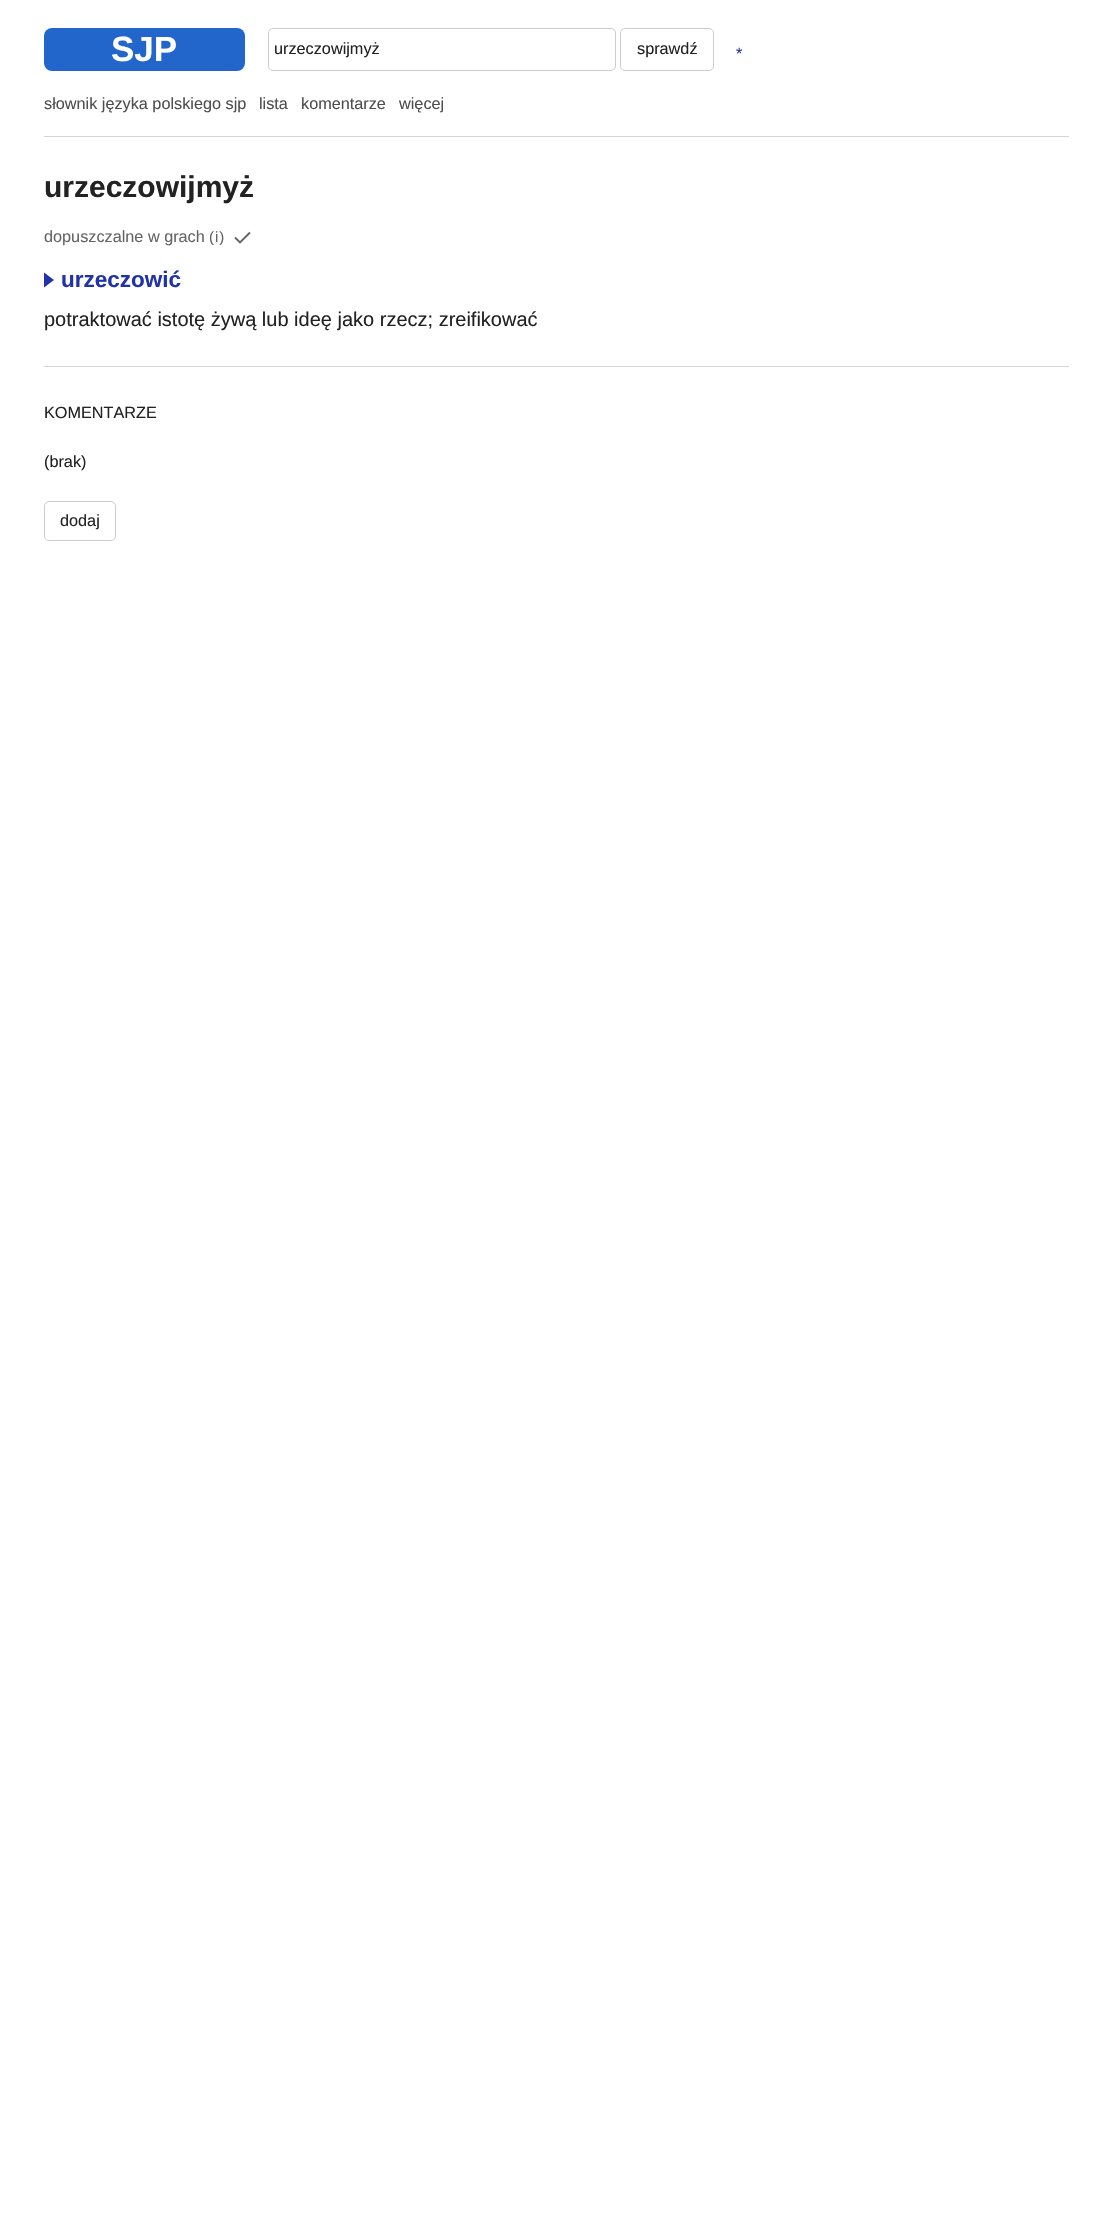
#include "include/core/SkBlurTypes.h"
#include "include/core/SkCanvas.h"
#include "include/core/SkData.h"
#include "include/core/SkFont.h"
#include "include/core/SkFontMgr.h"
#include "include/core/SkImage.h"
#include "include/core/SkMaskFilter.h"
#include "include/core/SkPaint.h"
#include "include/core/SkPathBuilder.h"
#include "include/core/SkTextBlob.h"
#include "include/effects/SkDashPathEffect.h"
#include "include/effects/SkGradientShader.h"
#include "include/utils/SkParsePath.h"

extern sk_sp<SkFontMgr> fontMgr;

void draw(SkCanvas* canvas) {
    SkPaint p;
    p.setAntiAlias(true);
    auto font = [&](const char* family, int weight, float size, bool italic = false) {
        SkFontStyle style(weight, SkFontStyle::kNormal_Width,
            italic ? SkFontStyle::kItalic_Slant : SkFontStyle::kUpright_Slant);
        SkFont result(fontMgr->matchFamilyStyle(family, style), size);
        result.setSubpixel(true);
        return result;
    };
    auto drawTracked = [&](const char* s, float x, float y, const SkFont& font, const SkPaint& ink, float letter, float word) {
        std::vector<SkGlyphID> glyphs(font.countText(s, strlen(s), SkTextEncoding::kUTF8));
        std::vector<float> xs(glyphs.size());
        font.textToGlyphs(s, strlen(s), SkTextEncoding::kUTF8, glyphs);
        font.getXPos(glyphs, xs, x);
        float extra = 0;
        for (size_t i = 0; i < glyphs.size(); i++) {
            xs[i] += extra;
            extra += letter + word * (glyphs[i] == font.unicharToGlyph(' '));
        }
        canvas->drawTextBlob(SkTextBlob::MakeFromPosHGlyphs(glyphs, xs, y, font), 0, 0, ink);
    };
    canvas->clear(0xFFFFFFFF);
    p.setColor(0xFF2266CC);
    canvas->drawRoundRect(SkRect::MakeLTRB(44, 28, 245, 71), 8, 8, p);
    auto font1 = font("Liberation Sans", 700, 35);
    p.setColor(0xFFFFFFFF);
    canvas->drawString("SJP", 111, 61, font1, p);
    p.setStyle(SkPaint::kStroke_Style);
    p.setStrokeWidth(1);
    p.setColor(0xFFCCCCCC);
    canvas->drawRoundRect(SkRect::MakeLTRB(268.5f, 28.5f, 615.5f, 70.5f), 4.5f, 4.5f, p);
    auto font2 = font("Liberation Sans", 400, 16.25f);
    p.setStyle(SkPaint::kFill_Style);
    p.setColor(0xFF222222);
    canvas->drawString("urzeczowijmyż", 274, 54, font2, p);
    p.setStyle(SkPaint::kStroke_Style);
    p.setColor(0xFFCCCCCC);
    canvas->drawRoundRect(SkRect::MakeLTRB(620.5f, 28.5f, 713.5f, 70.5f), 4.5f, 4.5f, p);
    p.setStyle(SkPaint::kFill_Style);
    p.setColor(0xFF222222);
    canvas->drawString("sprawdź", 637, 54, font2, p);
    p.setColor(0xFF2233AA);
    canvas->drawString("*", 736, 59, font2, p);
    p.setColor(0xFF4E4E4E);
    {
        const struct { const char* s; float x, y; } items[] = {
            {"słownik języka polskiego sjp", 44, 109},
            {"lista", 259, 109},
            {"komentarze", 301, 109},
            {"więcej", 399, 109},
        };
        for (auto [s, x, y] : items) {
            canvas->drawString(s, x, y, font2, p);
        }
    }
    p.setColor(0xFFD4D4D4);
    canvas->drawRect(SkRect::MakeLTRB(44, 136, 1069, 137), p);
    auto font3 = font("Liberation Sans", 700, 30);
    p.setColor(0xFF222222);
    canvas->drawString("urzeczowijmyż", 44, 197, font3, p);
    p.setColor(0xFF646464);
    canvas->drawString("dopuszczalne w grach", 44, 242, font2, p);
    auto font4 = font("Liberation Sans", 400, 15);
    drawTracked("(i)", 209, 242, font4, p, 1, 0);
    p.setStyle(SkPaint::kStroke_Style);
    p.setStrokeWidth(1.9f);
    canvas->drawPath(SkPathBuilder().moveTo(235, 237.5f).lineTo(240, 242.5f).lineTo(250, 232.5f).detach(), p);
    auto font5 = font("Liberation Sans", 700, 22.5f);
    p.setStyle(SkPaint::kFill_Style);
    p.setColor(0xFF2233AA);
    canvas->drawString("urzeczowić", 61, 287, font5, p);
    canvas->drawPath(SkPathBuilder().moveTo(44, 272.5f).lineTo(54, 280).lineTo(44, 287.5f).detach(), p);
    auto font6 = font("Liberation Sans", 400, 20);
    p.setColor(0xFF222222);
    canvas->drawString("potraktować istotę żywą lub ideę jako rzecz; zreifikować", 44, 326, font6, p);
    p.setColor(0xFFD4D4D4);
    canvas->drawRect(SkRect::MakeLTRB(44, 366, 1069, 367), p);
    p.setColor(0xFF222222);
    canvas->drawString("KOMENTARZE", 44, 418, font2, p);
    canvas->drawString("(brak)", 44, 467, font2, p);
    p.setStyle(SkPaint::kStroke_Style);
    p.setStrokeWidth(1);
    p.setColor(0xFFCCCCCC);
    canvas->drawRoundRect(SkRect::MakeLTRB(44.5f, 501.5f, 115.5f, 540.5f), 4.5f, 4.5f, p);
    p.setStyle(SkPaint::kFill_Style);
    p.setColor(0xFF222222);
    canvas->drawString("dodaj", 60, 526, font2, p);
}
